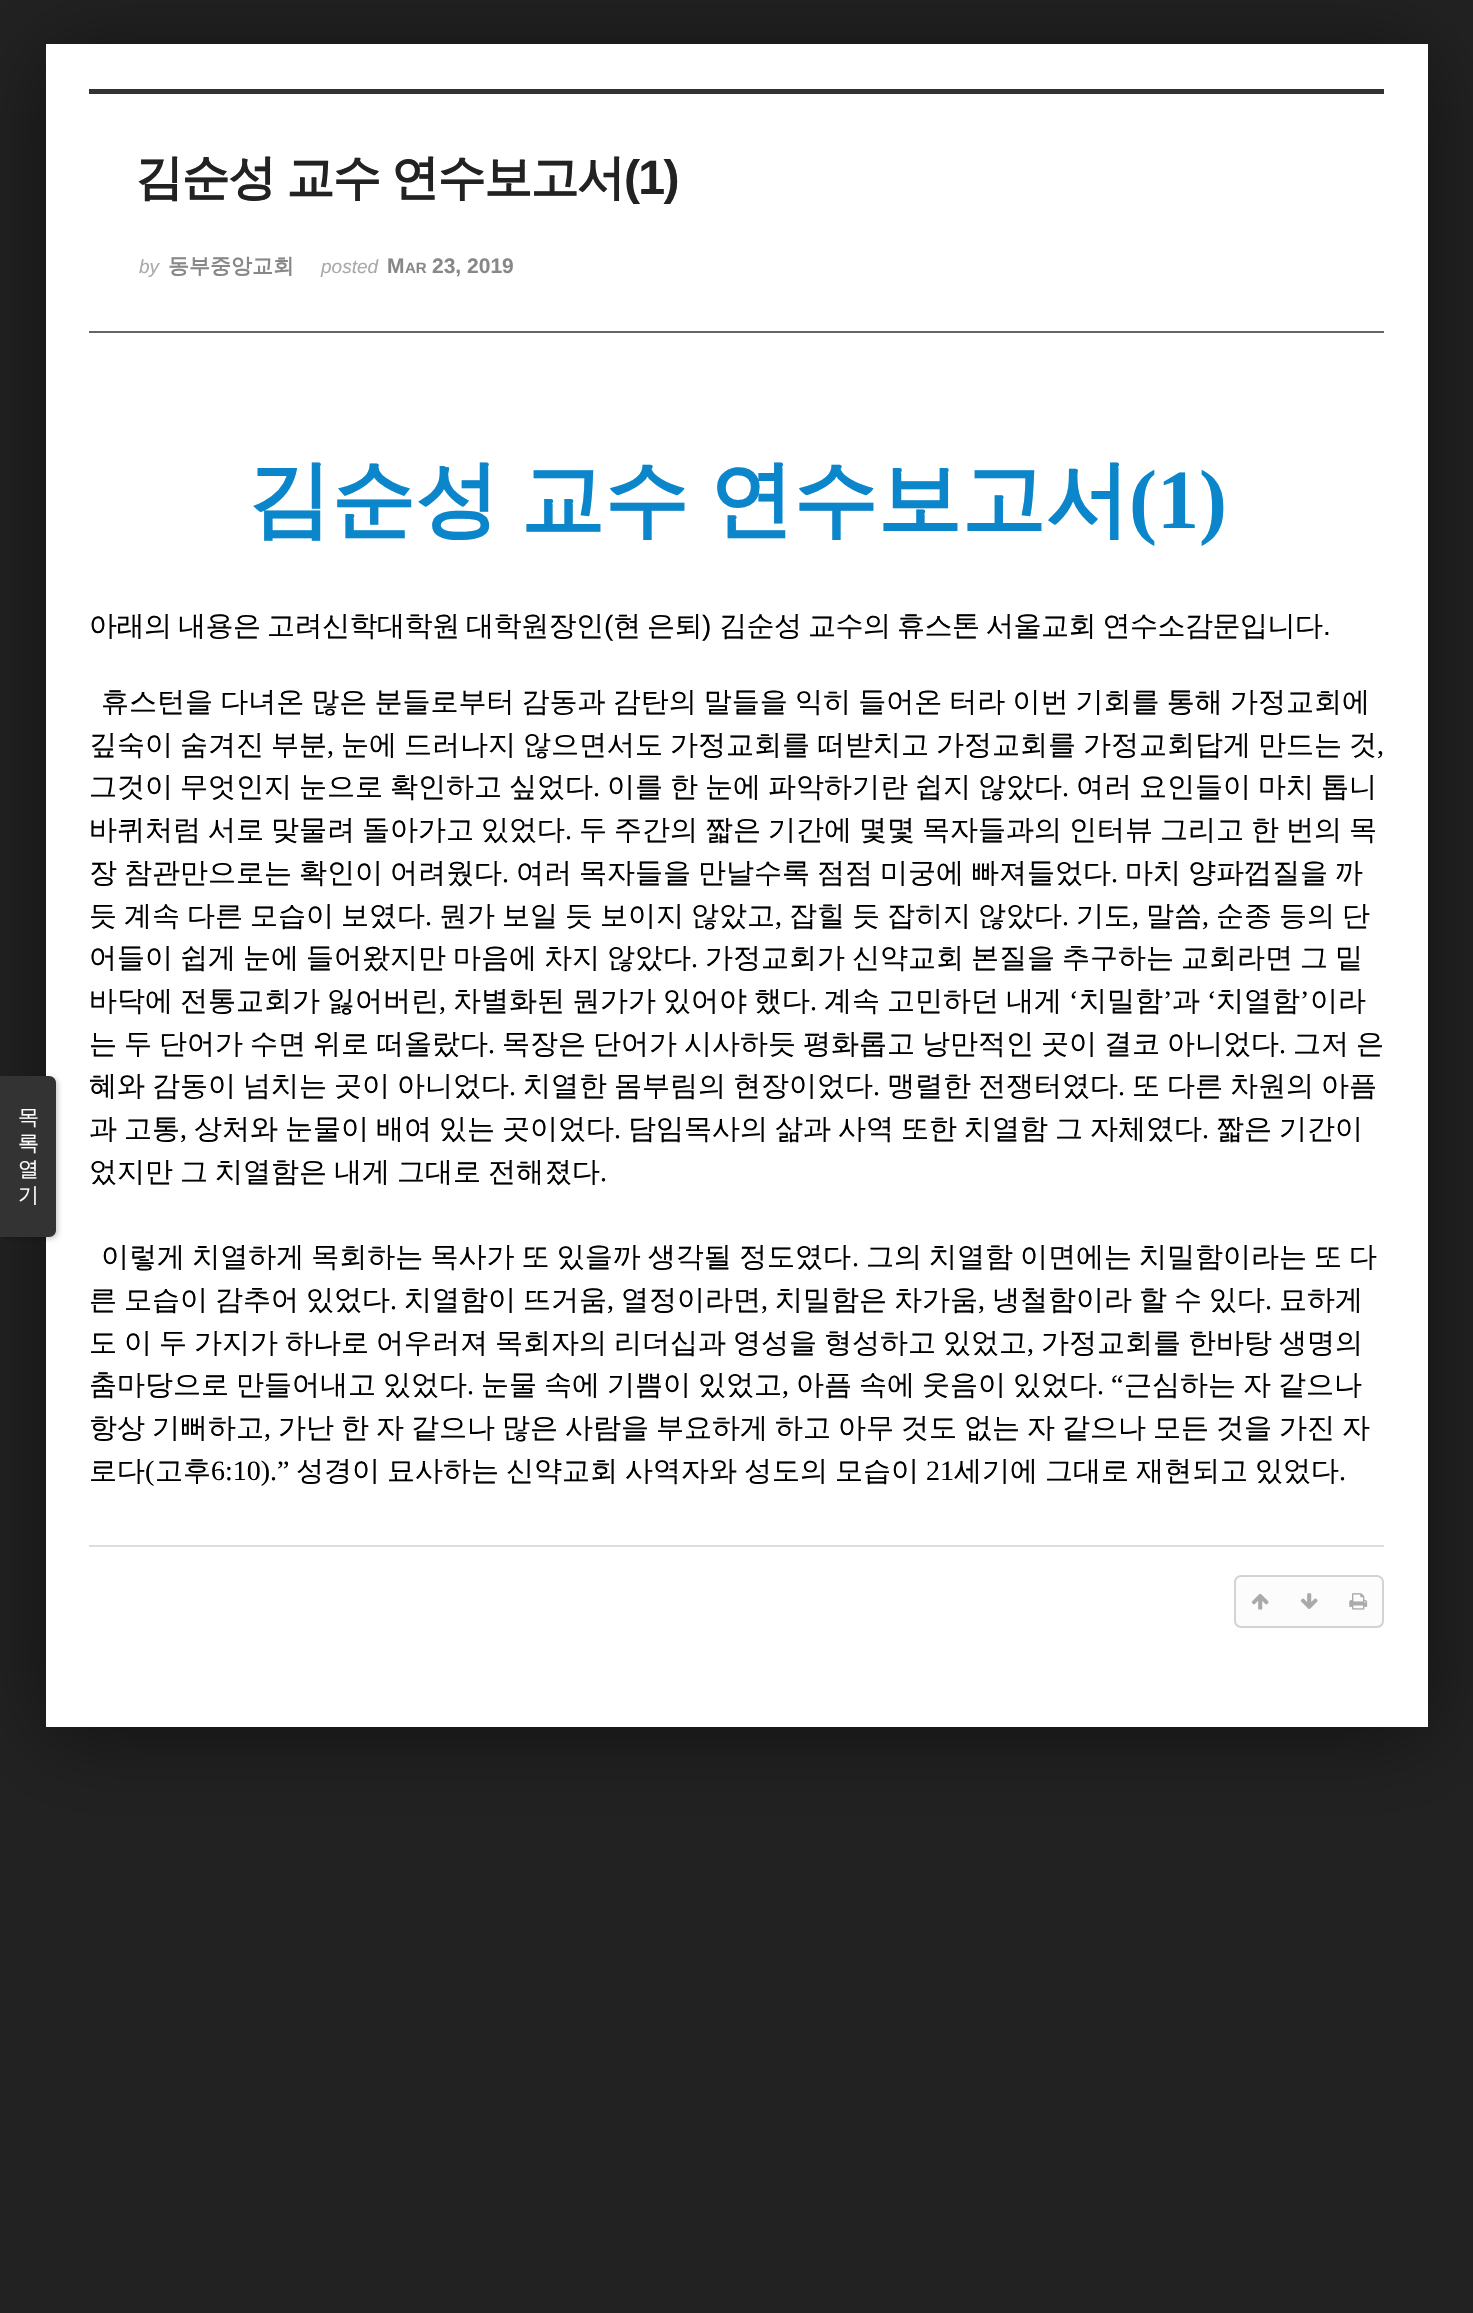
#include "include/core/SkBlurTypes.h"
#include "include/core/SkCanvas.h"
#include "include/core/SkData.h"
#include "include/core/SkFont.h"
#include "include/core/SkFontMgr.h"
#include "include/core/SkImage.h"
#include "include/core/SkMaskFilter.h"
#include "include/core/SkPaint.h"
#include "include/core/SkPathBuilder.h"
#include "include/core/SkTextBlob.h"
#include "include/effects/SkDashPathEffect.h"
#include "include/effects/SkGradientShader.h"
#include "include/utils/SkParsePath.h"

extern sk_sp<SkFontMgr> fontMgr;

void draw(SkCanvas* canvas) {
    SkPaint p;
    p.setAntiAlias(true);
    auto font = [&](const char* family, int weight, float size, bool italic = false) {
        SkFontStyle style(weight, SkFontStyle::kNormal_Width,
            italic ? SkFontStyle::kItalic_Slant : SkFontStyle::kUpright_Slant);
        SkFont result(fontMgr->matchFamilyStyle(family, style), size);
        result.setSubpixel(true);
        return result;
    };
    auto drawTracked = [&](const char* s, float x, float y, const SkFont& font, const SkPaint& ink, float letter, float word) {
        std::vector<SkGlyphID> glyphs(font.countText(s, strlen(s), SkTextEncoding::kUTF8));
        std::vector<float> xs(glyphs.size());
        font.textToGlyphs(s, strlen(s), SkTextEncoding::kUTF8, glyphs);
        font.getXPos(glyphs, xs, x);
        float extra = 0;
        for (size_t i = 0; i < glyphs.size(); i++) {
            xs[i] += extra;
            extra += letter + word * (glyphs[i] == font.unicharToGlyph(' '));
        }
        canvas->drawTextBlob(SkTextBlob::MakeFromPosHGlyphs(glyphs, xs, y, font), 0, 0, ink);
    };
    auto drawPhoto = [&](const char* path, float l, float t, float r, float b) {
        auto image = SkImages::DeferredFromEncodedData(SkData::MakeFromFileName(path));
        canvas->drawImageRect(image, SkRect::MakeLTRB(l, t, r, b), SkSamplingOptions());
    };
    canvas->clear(0xFF222222);
    p.setColor(0x80000000);
    p.setMaskFilter(SkMaskFilter::MakeBlur(kNormal_SkBlurStyle, 42));
    canvas->drawRect(SkRect::MakeLTRB(46, 51, 1428, 1734), p);
    p.setMaskFilter(nullptr);
    p.setColor(0xFFFFFFFF);
    canvas->drawRect(SkRect::MakeLTRB(46, 44, 1428, 1727), p);
    p.setColor(0x33000000);
    p.setMaskFilter(SkMaskFilter::MakeBlur(kNormal_SkBlurStyle, 2.5f));
    canvas->drawRoundRect(SkRect::MakeLTRB(2, 1078, 58, 1239), 7, 7, p);
    p.setMaskFilter(nullptr);
    p.setColor(0xFF333333);
    canvas->drawPath(SkPathBuilder().moveTo(0, 1076).lineTo(49, 1076).cubicTo(53, 1076, 56, 1079, 56, 1083).lineTo(56, 1230).cubicTo(56, 1234, 53, 1237, 49, 1237).lineTo(0, 1237).close().detach(), p);
    auto font1 = font("WenQuanYi Zen Hei", 500, 21);
    p.setColor(0xFFFFFFFF);
    {
        const struct { const char* s; float x, y; } items[] = {
            {"목", 18, 1124},
            {"록", 18, 1150},
            {"열", 18, 1176},
            {"기", 18, 1202},
        };
        for (auto [s, x, y] : items) {
            canvas->drawString(s, x, y, font1, p);
        }
    }
    p.setColor(0xFF333333);
    canvas->drawRect(SkRect::MakeLTRB(89, 89, 1384, 94), p);
    p.setColor(0xFF666666);
    canvas->drawRect(SkRect::MakeLTRB(89, 331, 1384, 333), p);
    auto font2 = font("WenQuanYi Zen Hei", 700, 48.25f);
    p.setColor(0xFF222222);
    drawTracked("김순성 교수 연수보고서", 135, 194, font2, p, -1.75f, -1);
    auto font3 = font("Liberation Sans", 700, 48.25f);
    drawTracked("(1)", 624, 194, font3, p, -1.75f, 0);
    auto font4 = font("Liberation Sans", 400, 19, true);
    p.setColor(0xFFAAAAAA);
    canvas->drawString("by", 139, 273, font4, p);
    auto font5 = font("WenQuanYi Zen Hei", 700, 21);
    p.setColor(0xFF888888);
    canvas->drawString("동부중앙교회", 168, 273, font5, p);
    p.setColor(0xFFAAAAAA);
    canvas->drawString("posted", 321, 273, font4, p);
    auto font6 = font("Liberation Sans", 700, 21);
    p.setColor(0xFF888888);
    canvas->drawString("M", 387, 273, font6, p);
    auto font7 = font("Liberation Sans", 700, 15);
    canvas->drawString("AR", 405, 273, font7, p);
    canvas->drawString("23, 2019", 432, 273, font6, p);
    auto font8 = font("WenQuanYi Zen Hei", 700, 84);
    p.setColor(0xFF0C86CB);
    drawTracked("김순성 교수 연수보고서", 247, 528, font8, p, 0, -4);
    auto font9 = font("Liberation Serif", 700, 84);
    canvas->drawString("(1)", 1129, 528, font9, p);
    auto font10 = font("WenQuanYi Zen Hei", 500, 28);
    p.setColor(0xFF000000);
    drawTracked("아래의 내용은 고려신학대학원 대학원장인", 89, 635, font10, p, -0.5f, -1.4f);
    auto font11 = font("Liberation Sans", 400, 28);
    drawTracked("(", 604, 635, font11, p, -0.5f, 0);
    drawTracked("현 은퇴", 613, 635, font10, p, -0.5f, -1.4f);
    drawTracked(")", 702, 635, font11, p, -0.5f, 0);
    drawTracked("김순성 교수의 휴스톤 서울교회 연수소감문입니다", 719, 635, font10, p, -0.5f, -1.4f);
    drawTracked(".", 1323, 635, font11, p, -0.5f, 0);
    drawTracked("휴스턴을 다녀온 많은 분들로부터 감동과 감탄의 말들을 익히 들어온 터라 이번 기회를 통해 가정교회에", 101, 711, font10, p, 0, -1.25f);
    drawTracked("깊숙이 숨겨진 부분", 89, 754, font10, p, 0, -1.4f);
    auto font12 = font("Liberation Serif", 400, 28);
    canvas->drawString(",", 327, 754, font12, p);
    drawTracked("눈에 드러나지 않으면서도 가정교회를 떠받치고 가정교회를 가정교회답게 만드는 것", 341, 754, font10, p, 0, -1.4f);
    canvas->drawString(",", 1377, 754, font12, p);
    drawTracked("그것이 무엇인지 눈으로 확인하고 싶었다", 89, 796, font10, p, 0, -1.4f);
    canvas->drawString(".", 593, 796, font12, p);
    drawTracked("이를 한 눈에 파악하기란 쉽지 않았다", 607, 796, font10, p, 0, -1.4f);
    canvas->drawString(".", 1062, 796, font12, p);
    drawTracked("여러 요인들이 마치 톱니", 1076, 796, font10, p, 0, -1.4f);
    drawTracked("바퀴처럼 서로 맞물려 돌아가고 있었다", 89, 839, font10, p, 0, -1.4f);
    canvas->drawString(".", 565, 839, font12, p);
    drawTracked("두 주간의 짧은 기간에 몇몇 목자들과의 인터뷰 그리고 한 번의 목", 579, 839, font10, p, 0, -1.4f);
    drawTracked("장 참관만으로는 확인이 어려웠다", 89, 882, font10, p, 0, -1.4f);
    canvas->drawString(".", 502, 882, font12, p);
    drawTracked("여러 목자들을 만날수록 점점 미궁에 빠져들었다", 516, 882, font10, p, 0, -1.4f);
    canvas->drawString(".", 1111, 882, font12, p);
    drawTracked("마치 양파껍질을 까", 1125, 882, font10, p, 0, -1.4f);
    drawTracked("듯 계속 다른 모습이 보였다", 89, 925, font10, p, 0, -1.4f);
    canvas->drawString(".", 425, 925, font12, p);
    drawTracked("뭔가 보일 듯 보이지 않았고", 439, 925, font10, p, 0, -1.4f);
    canvas->drawString(",", 775, 925, font12, p);
    drawTracked("잡힐 듯 잡히지 않았다", 789, 925, font10, p, 0, -1.4f);
    canvas->drawString(".", 1062, 925, font12, p);
    canvas->drawString("기도", 1076, 925, font10, p);
    canvas->drawString(",", 1132, 925, font12, p);
    canvas->drawString("말씀", 1146, 925, font10, p);
    canvas->drawString(",", 1202, 925, font12, p);
    drawTracked("순종 등의 단", 1216, 925, font10, p, 0, -1.4f);
    drawTracked("어들이 쉽게 눈에 들어왔지만 마음에 차지 않았다", 89, 967, font10, p, 0, -1.4f);
    canvas->drawString(".", 691, 967, font12, p);
    {
        const struct { const char* s; float x, y; } items[] = {
            {"가정교회가 신약교회 본질을 추구하는 교회라면 그 밑", 705, 967},
            {"바닥에 전통교회가 잃어버린", 89, 1010},
            {"차별화된 뭔가가 있어야 했다", 453, 1010},
            {"계속 고민하던 내게", 824, 1010},
        };
        for (auto [s, x, y] : items) {
            drawTracked(s, x, y, font10, p, 0, -1.4f);
        }
    }
    canvas->drawString("‘", 1069, 1010, font12, p);
    canvas->drawString("치밀함", 1079, 1010, font10, p);
    canvas->drawString("’", 1163, 1010, font12, p);
    canvas->drawString("과", 1172, 1010, font10, p);
    canvas->drawString("‘", 1207, 1010, font12, p);
    canvas->drawString("치열함", 1216, 1010, font10, p);
    canvas->drawString("’", 1300, 1010, font12, p);
    canvas->drawString("이라", 1310, 1010, font10, p);
    canvas->drawString(",", 439, 1010, font12, p);
    canvas->drawString(".", 810, 1010, font12, p);
    drawTracked("는 두 단어가 수면 위로 떠올랐다", 89, 1053, font10, p, 0, -1.4f);
    canvas->drawString(".", 488, 1053, font12, p);
    drawTracked("목장은 단어가 시사하듯 평화롭고 낭만적인 곳이 결코 아니었다", 502, 1053, font10, p, 0, -1.4f);
    canvas->drawString(".", 1279, 1053, font12, p);
    drawTracked("그저 은", 1293, 1053, font10, p, 0, -1.4f);
    drawTracked("혜와 감동이 넘치는 곳이 아니었다", 89, 1095, font10, p, 0, -1.4f);
    canvas->drawString(".", 509, 1095, font12, p);
    drawTracked("치열한 몸부림의 현장이었다", 523, 1095, font10, p, 0, -1.4f);
    canvas->drawString(".", 873, 1095, font12, p);
    drawTracked("맹렬한 전쟁터였다", 887, 1095, font10, p, 0, -1.4f);
    canvas->drawString(".", 1118, 1095, font12, p);
    drawTracked("또 다른 차원의 아픔", 1132, 1095, font10, p, 0, -1.4f);
    drawTracked("과 고통", 89, 1138, font10, p, 0, -1.4f);
    canvas->drawString(",", 180, 1138, font12, p);
    drawTracked("상처와 눈물이 배여 있는 곳이었다", 194, 1138, font10, p, 0, -1.4f);
    canvas->drawString(".", 614, 1138, font12, p);
    drawTracked("담임목사의 삶과 사역 또한 치열함 그 자체였다", 628, 1138, font10, p, 0, -1.4f);
    canvas->drawString(".", 1202, 1138, font12, p);
    drawTracked("짧은 기간이", 1216, 1138, font10, p, 0, -1.4f);
    drawTracked("었지만 그 치열함은 내게 그대로 전해졌다", 89, 1181, font10, p, 0, -1.4f);
    canvas->drawString(".", 600, 1181, font12, p);
    drawTracked("이렇게 치열하게 목회하는 목사가 또 있을까 생각될 정도였다", 101, 1266, font10, p, 0, -1.25f);
    canvas->drawString(".", 852, 1266, font12, p);
    drawTracked("그의 치열함 이면에는 치밀함이라는 또 다", 866, 1266, font10, p, 0, -1.4f);
    drawTracked("른 모습이 감추어 있었다", 89, 1309, font10, p, 0, -1.4f);
    canvas->drawString(".", 390, 1309, font12, p);
    drawTracked("치열함이 뜨거움", 404, 1309, font10, p, 0, -1.4f);
    canvas->drawString(",", 607, 1309, font12, p);
    canvas->drawString("열정이라면", 621, 1309, font10, p);
    canvas->drawString(",", 761, 1309, font12, p);
    drawTracked("치밀함은 차가움", 775, 1309, font10, p, 0, -1.4f);
    canvas->drawString(",", 978, 1309, font12, p);
    drawTracked("냉철함이라 할 수 있다", 992, 1309, font10, p, 0, -1.4f);
    canvas->drawString(".", 1265, 1309, font12, p);
    canvas->drawString("묘하게", 1279, 1309, font10, p);
    drawTracked("도 이 두 가지가 하나로 어우러져 목회자의 리더십과 영성을 형성하고 있었고", 89, 1352, font10, p, 0, -1.4f);
    canvas->drawString(",", 1027, 1352, font12, p);
    drawTracked("가정교회를 한바탕 생명의", 1041, 1352, font10, p, 0, -1.4f);
    drawTracked("춤마당으로 만들어내고 있었다", 89, 1394, font10, p, 0, -1.4f);
    canvas->drawString(".", 467, 1394, font12, p);
    drawTracked("눈물 속에 기쁨이 있었고", 481, 1394, font10, p, 0, -1.4f);
    canvas->drawString(",", 782, 1394, font12, p);
    drawTracked("아픔 속에 웃음이 있었다", 796, 1394, font10, p, 0, -1.4f);
    canvas->drawString(". “", 1097, 1394, font12, p);
    drawTracked("근심하는 자 같으나", 1124, 1394, font10, p, 0, -1.4f);
    drawTracked("항상 기뻐하고", 89, 1437, font10, p, 0, -1.4f);
    canvas->drawString(",", 264, 1437, font12, p);
    drawTracked("가난 한 자 같으나 많은 사람을 부요하게 하고 아무 것도 없는 자 같으나 모든 것을 가진 자", 278, 1437, font10, p, 0, -1.4f);
    canvas->drawString("로다", 89, 1480, font10, p);
    canvas->drawString("(", 145, 1480, font12, p);
    canvas->drawString("고후", 155, 1480, font10, p);
    canvas->drawString("6:10).”", 211, 1480, font12, p);
    drawTracked("성경이 묘사하는 신약교회 사역자와 성도의 모습이", 296, 1480, font10, p, 0, -1.4f);
    canvas->drawString("21", 926, 1480, font12, p);
    drawTracked("세기에 그대로 재현되고 있었다", 954, 1480, font10, p, 0, -1.4f);
    canvas->drawString(".", 1339, 1480, font12, p);
    p.setColor(0xFFDDDDDD);
    canvas->drawRect(SkRect::MakeLTRB(89, 1545, 1384, 1547), p);
    p.setColor(0xFFFCFCFC);
    canvas->drawRoundRect(SkRect::MakeLTRB(1235, 1576, 1383, 1627), 6, 6, p);
    p.setStyle(SkPaint::kStroke_Style);
    p.setStrokeWidth(2);
    p.setColor(0xFFD3D3D3);
    canvas->drawRoundRect(SkRect::MakeLTRB(1235, 1576, 1383, 1627), 6, 6, p);
    drawPhoto("media/1.png", 1251, 1593, 1269, 1610);
    drawPhoto("media/2.png", 1300, 1593, 1318, 1609);
    drawPhoto("media/3.png", 1349, 1593, 1368, 1610);
}
